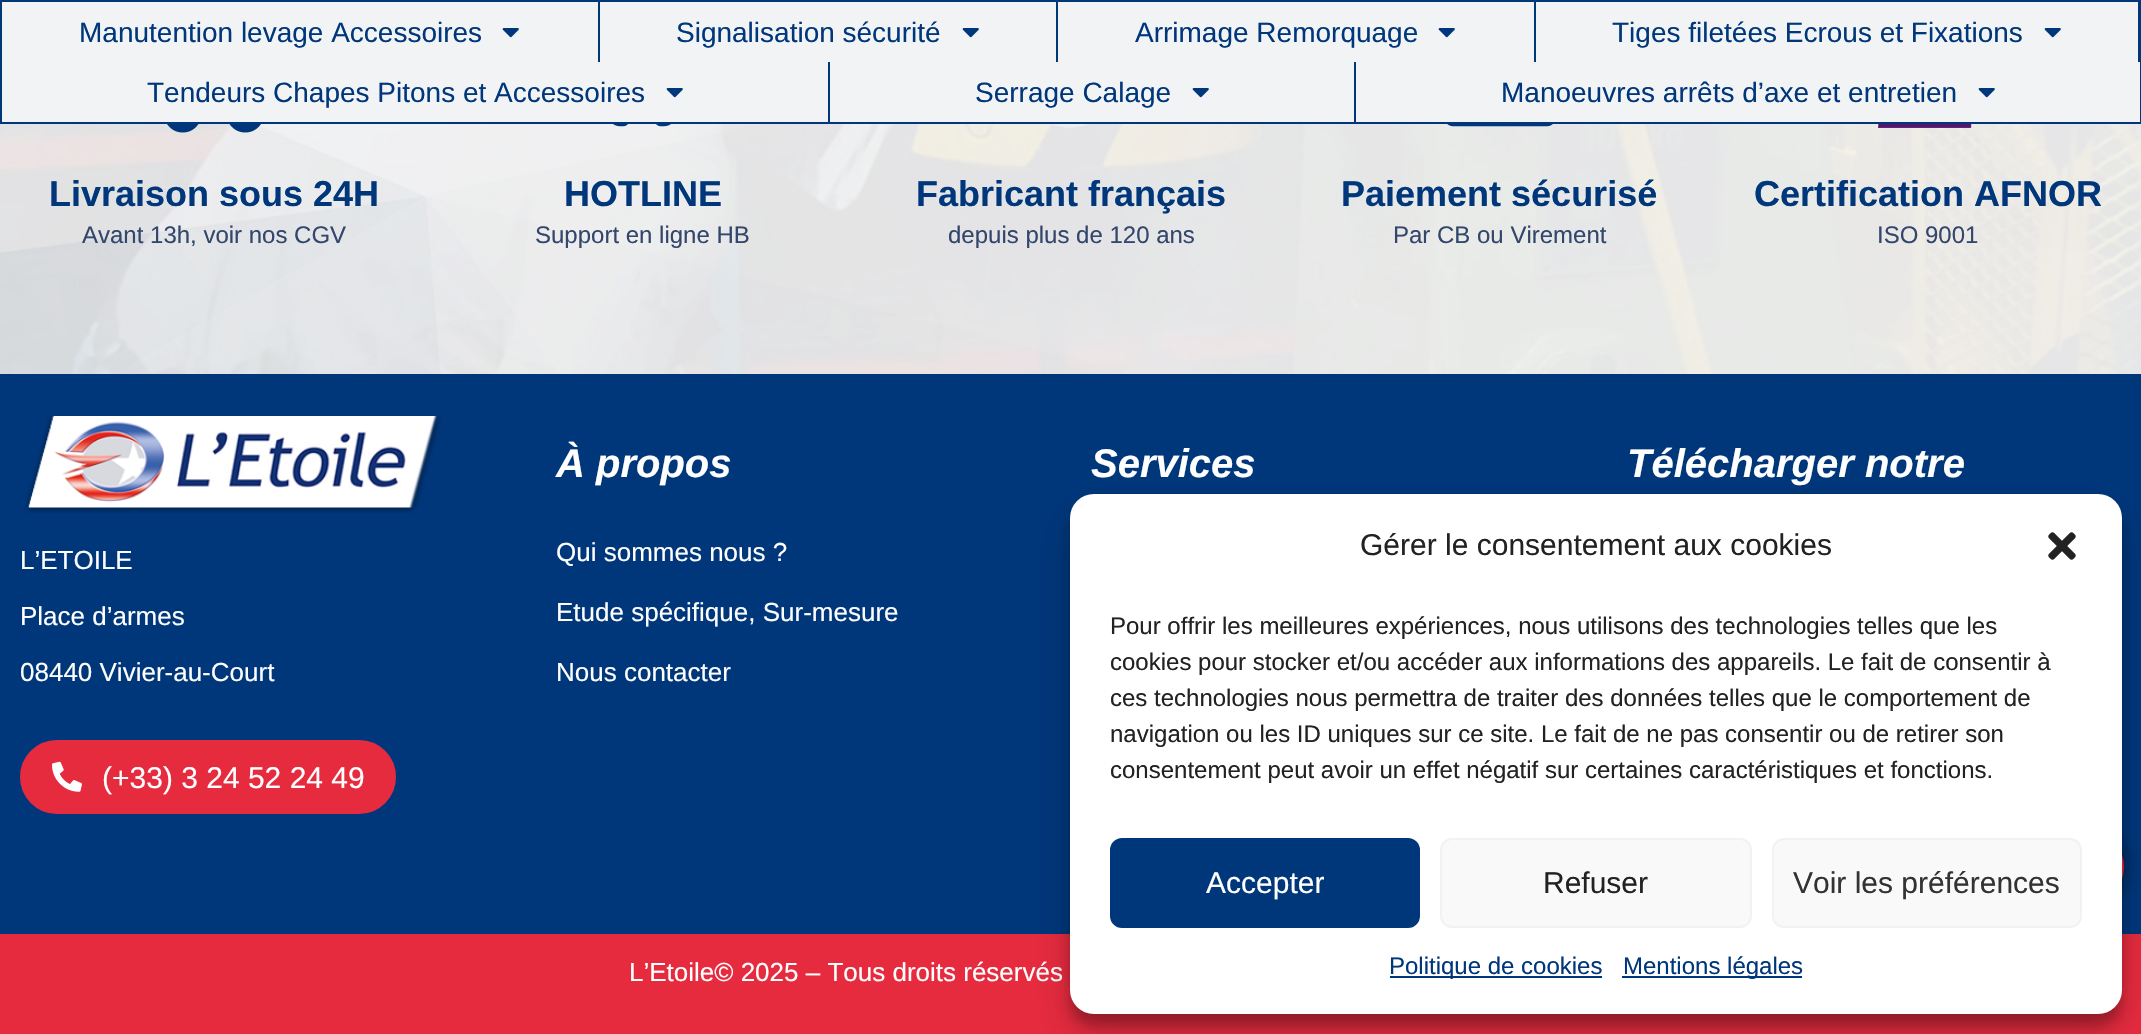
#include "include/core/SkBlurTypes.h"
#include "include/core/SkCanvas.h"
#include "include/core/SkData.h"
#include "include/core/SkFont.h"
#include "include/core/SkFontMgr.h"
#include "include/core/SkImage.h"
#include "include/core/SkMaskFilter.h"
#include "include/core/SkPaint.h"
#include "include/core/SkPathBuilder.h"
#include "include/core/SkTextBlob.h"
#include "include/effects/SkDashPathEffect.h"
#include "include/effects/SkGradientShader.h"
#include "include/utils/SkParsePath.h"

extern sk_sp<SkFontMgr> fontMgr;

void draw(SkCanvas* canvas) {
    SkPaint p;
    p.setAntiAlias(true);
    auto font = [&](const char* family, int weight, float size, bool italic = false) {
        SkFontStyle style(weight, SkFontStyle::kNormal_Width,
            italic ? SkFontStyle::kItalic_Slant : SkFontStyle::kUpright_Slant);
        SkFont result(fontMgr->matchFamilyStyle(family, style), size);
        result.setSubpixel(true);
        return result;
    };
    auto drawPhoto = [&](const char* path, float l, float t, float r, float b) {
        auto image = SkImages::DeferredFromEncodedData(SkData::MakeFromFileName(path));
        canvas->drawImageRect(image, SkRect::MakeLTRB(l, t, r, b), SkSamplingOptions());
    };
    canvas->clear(0xFFFFFFFF);
    drawPhoto("media/2.png", 0, 124, 2141, 374);
    p.setColor(0xFFECEFF1);
    canvas->drawPath(SkPathBuilder().moveTo(1088, 40).cubicTo(1077, 35, 1063, 35, 1052, 40).lineTo(1052, 124).cubicTo(1063, 129, 1077, 129, 1088, 124).close().detach(), p);
    p.setColor(0xFFF2F3F5);
    canvas->drawRect(SkRect::MakeLTRB(1, 1, 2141, 123), p);
    p.setStyle(SkPaint::kStroke_Style);
    p.setStrokeWidth(2);
    p.setColor(0xFF00377B);
    canvas->drawRect(SkRect::MakeLTRB(1, 1, 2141, 123), p);
    auto font1 = font("Liberation Sans", 400, 28);
    p.setStyle(SkPaint::kFill_Style);
    canvas->drawString("Manutention levage Accessoires", 79, 42, font1, p);
    drawPhoto("media/1.png", 502, 28, 519, 38);
    canvas->drawRect(SkRect::MakeLTRB(598, 2, 600, 62), p);
    canvas->drawString("Signalisation sécurité", 676, 42, font1, p);
    drawPhoto("media/1.png", 962, 28, 979, 38);
    canvas->drawRect(SkRect::MakeLTRB(1056, 2, 1058, 62), p);
    canvas->drawString("Arrimage Remorquage", 1135, 42, font1, p);
    drawPhoto("media/1.png", 1438, 28, 1455, 38);
    canvas->drawRect(SkRect::MakeLTRB(1534, 2, 1536, 62), p);
    canvas->drawString("Tiges filetées Ecrous et Fixations", 1612, 42, font1, p);
    drawPhoto("media/1.png", 2044, 28, 2061, 38);
    canvas->drawRect(SkRect::MakeLTRB(2138, 2, 2140, 62), p);
    canvas->drawString("Tendeurs Chapes Pitons et Accessoires", 147, 102, font1, p);
    drawPhoto("media/1.png", 666, 88, 683, 98);
    canvas->drawRect(SkRect::MakeLTRB(828, 62, 830, 122), p);
    canvas->drawString("Serrage Calage", 975, 102, font1, p);
    drawPhoto("media/1.png", 1192, 88, 1209, 98);
    canvas->drawRect(SkRect::MakeLTRB(1354, 62, 1356, 122), p);
    canvas->drawString("Manoeuvres arrêts d’axe et entretien", 1501, 102, font1, p);
    drawPhoto("media/1.png", 1978, 88, 1995, 98);
    drawPhoto("media/3.png", 167, 124, 261, 133);
    auto font2 = font("Liberation Sans", 700, 36);
    canvas->drawString("Livraison sous 24H", 49, 206, font2, p);
    auto font3 = font("Liberation Sans", 400, 24);
    p.setColor(0xFF33466B);
    canvas->drawString("Avant 13h, voir nos CGV", 82, 243, font3, p);
    drawPhoto("media/4.png", 613, 124, 671, 127);
    p.setColor(0xFF00377B);
    canvas->drawString("HOTLINE", 564, 206, font2, p);
    p.setColor(0xFF33466B);
    canvas->drawString("Support en ligne HB", 535, 243, font3, p);
    p.setColor(0xFF00377B);
    canvas->drawString("Fabricant français", 916, 206, font2, p);
    p.setColor(0xFF33466B);
    canvas->drawString("depuis plus de 120 ans", 948, 243, font3, p);
    drawPhoto("media/5.png", 1447, 124, 1553, 127);
    p.setColor(0xFF00377B);
    canvas->drawString("Paiement sécurisé", 1341, 206, font2, p);
    p.setColor(0xFF33466B);
    canvas->drawString("Par CB ou Virement", 1393, 243, font3, p);
    drawPhoto("media/6.png", 1878, 124, 1972, 128);
    p.setColor(0xFF00377B);
    canvas->drawString("Certification AFNOR", 1754, 206, font2, p);
    p.setColor(0xFF33466B);
    canvas->drawString("ISO 9001", 1877, 243, font3, p);
    p.setColor(0xFF00377B);
    canvas->drawRect(SkRect::MakeLTRB(0, 374, 2141, 934), p);
    auto font4 = font("Liberation Sans", 700, 40, true);
    p.setColor(0xFFFFFFFF);
    canvas->drawString("À propos", 556, 477, font4, p);
    auto font5 = font("Liberation Sans", 400, 26);
    {
        const struct { const char* s; float x, y; } items[] = {
            {"Qui sommes nous ?", 556, 561},
            {"Etude spécifique, Sur-mesure", 556, 621},
            {"Nous contacter", 556, 681},
        };
        for (auto [s, x, y] : items) {
            canvas->drawString(s, x, y, font5, p);
        }
    }
    canvas->drawString("Services", 1091, 477, font4, p);
    canvas->drawString("Télécharger notre", 1627, 477, font4, p);
    drawPhoto("media/7.png", 24, 416, 441, 514);
    {
        const struct { const char* s; float x, y; } items[] = {
            {"L’ETOILE", 20, 569},
            {"Place d’armes", 20, 625},
            {"08440 Vivier-au-Court", 20, 681},
        };
        for (auto [s, x, y] : items) {
            canvas->drawString(s, x, y, font5, p);
        }
    }
    p.setColor(0xFFE72B3F);
    canvas->drawRoundRect(SkRect::MakeLTRB(21, 741, 395, 813), 36, 36, p);
    p.setStyle(SkPaint::kStroke_Style);
    canvas->drawRoundRect(SkRect::MakeLTRB(21, 741, 395, 813), 36, 36, p);
    drawPhoto("media/8.png", 52, 761, 82, 792);
    auto font6 = font("Liberation Sans", 400, 30);
    p.setStyle(SkPaint::kFill_Style);
    p.setColor(0xFFFFFFFF);
    canvas->drawString("(+33) 3 24 52 24 49", 102, 788, font6, p);
    p.setColor(0x29000000);
    p.setMaskFilter(SkMaskFilter::MakeBlur(kNormal_SkBlurStyle, 5));
    canvas->drawRoundRect(SkRect::MakeLTRB(1800, 822, 2132, 912), 45, 45, p);
    p.setMaskFilter(nullptr);
    p.setColor(0xFFE72B3F);
    canvas->drawRoundRect(SkRect::MakeLTRB(1808, 830, 2124, 904), 37, 37, p);
    canvas->drawRect(SkRect::MakeLTRB(0, 934, 2141, 1034), p);
    p.setColor(0xFFFFFFFF);
    canvas->drawString("L’Etoile© 2025 – Tous droits réservés", 629, 981, font5, p);
    p.setColor(0x3B000000);
    p.setMaskFilter(SkMaskFilter::MakeBlur(kNormal_SkBlurStyle, 6));
    canvas->drawRoundRect(SkRect::MakeLTRB(1070, 506, 2122, 1026), 24, 24, p);
    p.setMaskFilter(nullptr);
    p.setColor(0x30000000);
    p.setMaskFilter(SkMaskFilter::MakeBlur(kNormal_SkBlurStyle, 20));
    canvas->drawRoundRect(SkRect::MakeLTRB(1070, 514, 2122, 1034), 24, 24, p);
    p.setMaskFilter(nullptr);
    p.setColor(0xFFFFFFFF);
    canvas->drawRoundRect(SkRect::MakeLTRB(1070, 494, 2122, 1014), 24, 24, p);
    p.setColor(0xFF222222);
    canvas->drawString("Gérer le consentement aux cookies", 1360, 555, font6, p);
    drawPhoto("media/9.png", 2048, 532, 2076, 560);
    {
        const struct { const char* s; float x, y; } items[] = {
            {"Pour offrir les meilleures expériences, nous utilisons des technologies telles que les", 1110, 634},
            {"cookies pour stocker et/ou accéder aux informations des appareils. Le fait de consentir à", 1110, 670},
            {"ces technologies nous permettra de traiter des données telles que le comportement de", 1110, 706},
            {"navigation ou les ID uniques sur ce site. Le fait de ne pas consentir ou de retirer son", 1110, 742},
            {"consentement peut avoir un effet négatif sur certaines caractéristiques et fonctions.", 1110, 778},
        };
        for (auto [s, x, y] : items) {
            canvas->drawString(s, x, y, font3, p);
        }
    }
    p.setColor(0xFF00377B);
    canvas->drawRoundRect(SkRect::MakeLTRB(1111, 839, 1419, 927), 11, 11, p);
    p.setStyle(SkPaint::kStroke_Style);
    canvas->drawRoundRect(SkRect::MakeLTRB(1111, 839, 1419, 927), 11, 11, p);
    p.setStyle(SkPaint::kFill_Style);
    p.setColor(0xFFFFFFFF);
    canvas->drawString("Accepter", 1206, 893, font6, p);
    p.setColor(0xFFF9F9F9);
    canvas->drawRoundRect(SkRect::MakeLTRB(1441, 839, 1751, 927), 11, 11, p);
    p.setStyle(SkPaint::kStroke_Style);
    p.setColor(0xFFF2F2F2);
    canvas->drawRoundRect(SkRect::MakeLTRB(1441, 839, 1751, 927), 11, 11, p);
    p.setStyle(SkPaint::kFill_Style);
    p.setColor(0xFF222222);
    canvas->drawString("Refuser", 1543, 893, font6, p);
    p.setColor(0xFFF9F9F9);
    canvas->drawRoundRect(SkRect::MakeLTRB(1773, 839, 2081, 927), 11, 11, p);
    p.setStyle(SkPaint::kStroke_Style);
    p.setColor(0xFFF2F2F2);
    canvas->drawRoundRect(SkRect::MakeLTRB(1773, 839, 2081, 927), 11, 11, p);
    p.setStyle(SkPaint::kFill_Style);
    p.setColor(0xFF333333);
    canvas->drawString("Voir les préférences", 1793, 893, font6, p);
    p.setColor(0xFF00377B);
    canvas->drawRect(SkRect::MakeLTRB(1390, 976, 1602, 978), p);
    canvas->drawString("Politique de cookies", 1389, 974, font3, p);
    canvas->drawRect(SkRect::MakeLTRB(1622, 976, 1802, 978), p);
    canvas->drawString("Mentions légales", 1623, 974, font3, p);
}
